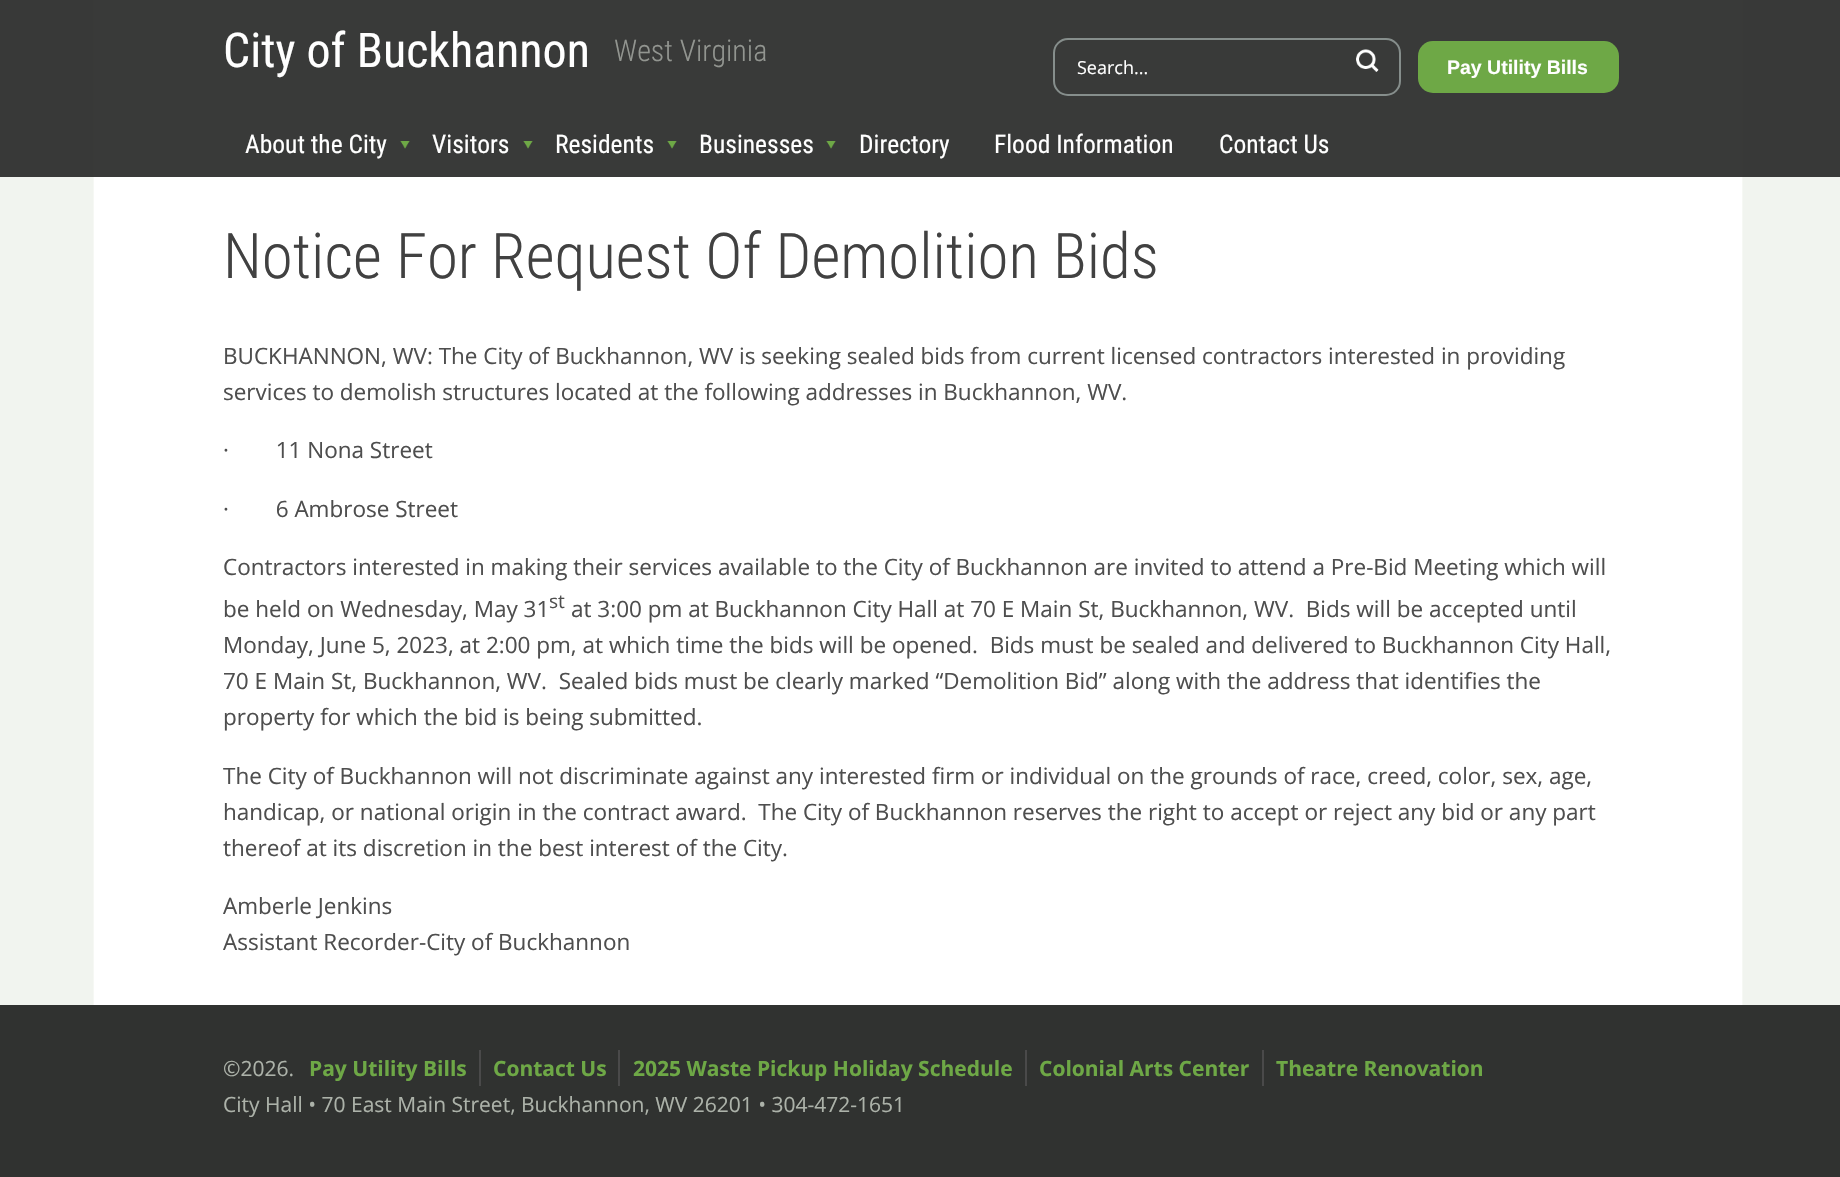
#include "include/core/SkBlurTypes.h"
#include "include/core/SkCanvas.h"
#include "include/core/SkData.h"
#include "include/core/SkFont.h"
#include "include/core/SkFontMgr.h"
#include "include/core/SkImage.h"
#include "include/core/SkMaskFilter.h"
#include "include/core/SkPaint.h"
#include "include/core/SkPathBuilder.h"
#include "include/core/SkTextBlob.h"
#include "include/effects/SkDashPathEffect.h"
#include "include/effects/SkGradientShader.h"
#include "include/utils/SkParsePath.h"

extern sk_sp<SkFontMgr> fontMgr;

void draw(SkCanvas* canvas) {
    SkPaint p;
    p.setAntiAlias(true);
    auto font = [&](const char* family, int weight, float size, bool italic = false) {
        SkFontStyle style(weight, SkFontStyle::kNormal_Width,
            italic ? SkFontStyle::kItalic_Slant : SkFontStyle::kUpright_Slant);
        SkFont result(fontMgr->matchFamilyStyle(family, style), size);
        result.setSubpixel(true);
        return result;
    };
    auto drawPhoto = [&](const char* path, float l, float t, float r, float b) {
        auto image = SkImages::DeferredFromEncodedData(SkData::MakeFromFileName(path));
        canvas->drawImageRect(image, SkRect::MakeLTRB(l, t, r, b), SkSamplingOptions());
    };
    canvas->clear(0xFFFFFFFF);
    drawPhoto("media/1.png", 0, 0, 1840, 1005);
    p.setColor(0xE6232523);
    canvas->drawRect(SkRect::MakeLTRB(0, 0, 1840, 177), p);
    auto font1 = font("Roboto Condensed", 400, 48);
    p.setColor(0xFFFFFFFF);
    canvas->drawString("City of Buckhannon", 223, 67, font1, p);
    auto font2 = font("Roboto Condensed", 300, 30);
    p.setColor(0xFF929590);
    canvas->drawString("West Virginia", 614, 61, font2, p);
    p.setStyle(SkPaint::kStroke_Style);
    p.setStrokeWidth(2);
    p.setColor(0xFF868E8C);
    canvas->drawRoundRect(SkRect::MakeLTRB(1054, 39, 1400, 95), 14, 14, p);
    auto font3 = font("Open Sans", 400, 18);
    p.setStyle(SkPaint::kFill_Style);
    p.setColor(0xFFFFFFFF);
    canvas->drawString("Search...", 1077, 74, font3, p);
    drawPhoto("media/2.png", 1356, 49, 1379, 72);
    p.setColor(0xFF6EA846);
    canvas->drawRoundRect(SkRect::MakeLTRB(1418, 41, 1619, 93), 15, 15, p);
    auto font4 = font("Liberation Sans", 700, 19.5f);
    p.setColor(0xFFFFFFFF);
    canvas->drawString("Pay Utility Bills", 1447, 74, font4, p);
    drawPhoto("media/3.png", 400, 141, 410, 149);
    auto font5 = font("Roboto Condensed", 400, 25.5f);
    canvas->drawString("About the City", 245, 153, font5, p);
    drawPhoto("media/3.png", 523, 141, 533, 149);
    canvas->drawString("Visitors", 432, 153, font5, p);
    drawPhoto("media/3.png", 667, 141, 677, 149);
    canvas->drawString("Residents", 555, 153, font5, p);
    drawPhoto("media/4.png", 826, 141, 836, 149);
    {
        const struct { const char* s; float x, y; } items[] = {
            {"Businesses", 699, 153},
            {"Directory", 859, 153},
            {"Flood Information", 994, 153},
            {"Contact Us", 1219, 153},
        };
        for (auto [s, x, y] : items) {
            canvas->drawString(s, x, y, font5, p);
        }
    }
    auto font6 = font("Roboto Condensed", 300, 63);
    p.setColor(0xFF414141);
    canvas->drawString("Notice For Request Of Demolition Bids", 223, 278, font6, p);
    auto font7 = font("Open Sans", 400, 22.5f);
    p.setColor(0xFF4E4E4E);
    {
        const struct { const char* s; float x, y; } items[] = {
            {"BUCKHANNON, WV: The City of Buckhannon, WV is seeking sealed bids from current licensed contractors interested in providing", 223, 364},
            {"services to demolish structures located at the following addresses in Buckhannon, WV.", 223, 400},
            {"·        11 Nona Street", 223, 458},
            {"·        6 Ambrose Street", 223, 517},
            {"Contractors interested in making their services available to the City of Buckhannon are invited to attend a Pre-Bid Meeting which will", 223, 575},
            {"be held on Wednesday, May 31", 223, 617},
        };
        for (auto [s, x, y] : items) {
            canvas->drawString(s, x, y, font7, p);
        }
    }
    auto font8 = font("Open Sans", 400, 19);
    canvas->drawString("st", 549, 608, font8, p);
    {
        const struct { const char* s; float x, y; } items[] = {
            {"at 3:00 pm at Buckhannon City Hall at 70 E Main St, Buckhannon, WV.  Bids will be accepted until", 571, 617},
            {"Monday, June 5, 2023, at 2:00 pm, at which time the bids will be opened.  Bids must be sealed and delivered to Buckhannon City Hall,", 223, 653},
            {"70 E Main St, Buckhannon, WV.  Sealed bids must be clearly marked “Demolition Bid” along with the address that identifies the", 223, 689},
            {"property for which the bid is being submitted.", 223, 725},
            {"The City of Buckhannon will not discriminate against any interested firm or individual on the grounds of race, creed, color, sex, age,", 223, 784},
            {"handicap, or national origin in the contract award.  The City of Buckhannon reserves the right to accept or reject any bid or any part", 223, 820},
            {"thereof at its discretion in the best interest of the City.", 223, 856},
            {"Amberle Jenkins", 223, 914},
            {"Assistant Recorder-City of Buckhannon", 223, 950},
        };
        for (auto [s, x, y] : items) {
            canvas->drawString(s, x, y, font7, p);
        }
    }
    p.setColor(0xFF303230);
    canvas->drawRect(SkRect::MakeLTRB(0, 1005, 1840, 1177), p);
    auto font9 = font("Open Sans", 400, 21);
    p.setColor(0xFFACB2A9);
    canvas->drawString("©2026.", 223, 1076, font9, p);
    p.setColor(0xFF4A4A4A);
    canvas->drawRect(SkRect::MakeLTRB(479, 1050, 481, 1086), p);
    auto font10 = font("Open Sans", 700, 21);
    p.setColor(0xFF6EA846);
    canvas->drawString("Pay Utility Bills", 309, 1076, font10, p);
    p.setColor(0xFF4A4A4A);
    canvas->drawRect(SkRect::MakeLTRB(618, 1050, 620, 1086), p);
    p.setColor(0xFF6EA846);
    canvas->drawString("Contact Us", 493, 1076, font10, p);
    p.setColor(0xFF4A4A4A);
    canvas->drawRect(SkRect::MakeLTRB(1025, 1050, 1027, 1086), p);
    p.setColor(0xFF6EA846);
    canvas->drawString("2025 Waste Pickup Holiday Schedule", 633, 1076, font10, p);
    p.setColor(0xFF4A4A4A);
    canvas->drawRect(SkRect::MakeLTRB(1262, 1050, 1264, 1086), p);
    p.setColor(0xFF6EA846);
    canvas->drawString("Colonial Arts Center", 1039, 1076, font10, p);
    canvas->drawString("Theatre Renovation", 1276, 1076, font10, p);
    p.setColor(0xFFACB2A9);
    canvas->drawString("City Hall • 70 East Main Street, Buckhannon, WV 26201 • 304-472-1651", 223, 1112, font9, p);
}
